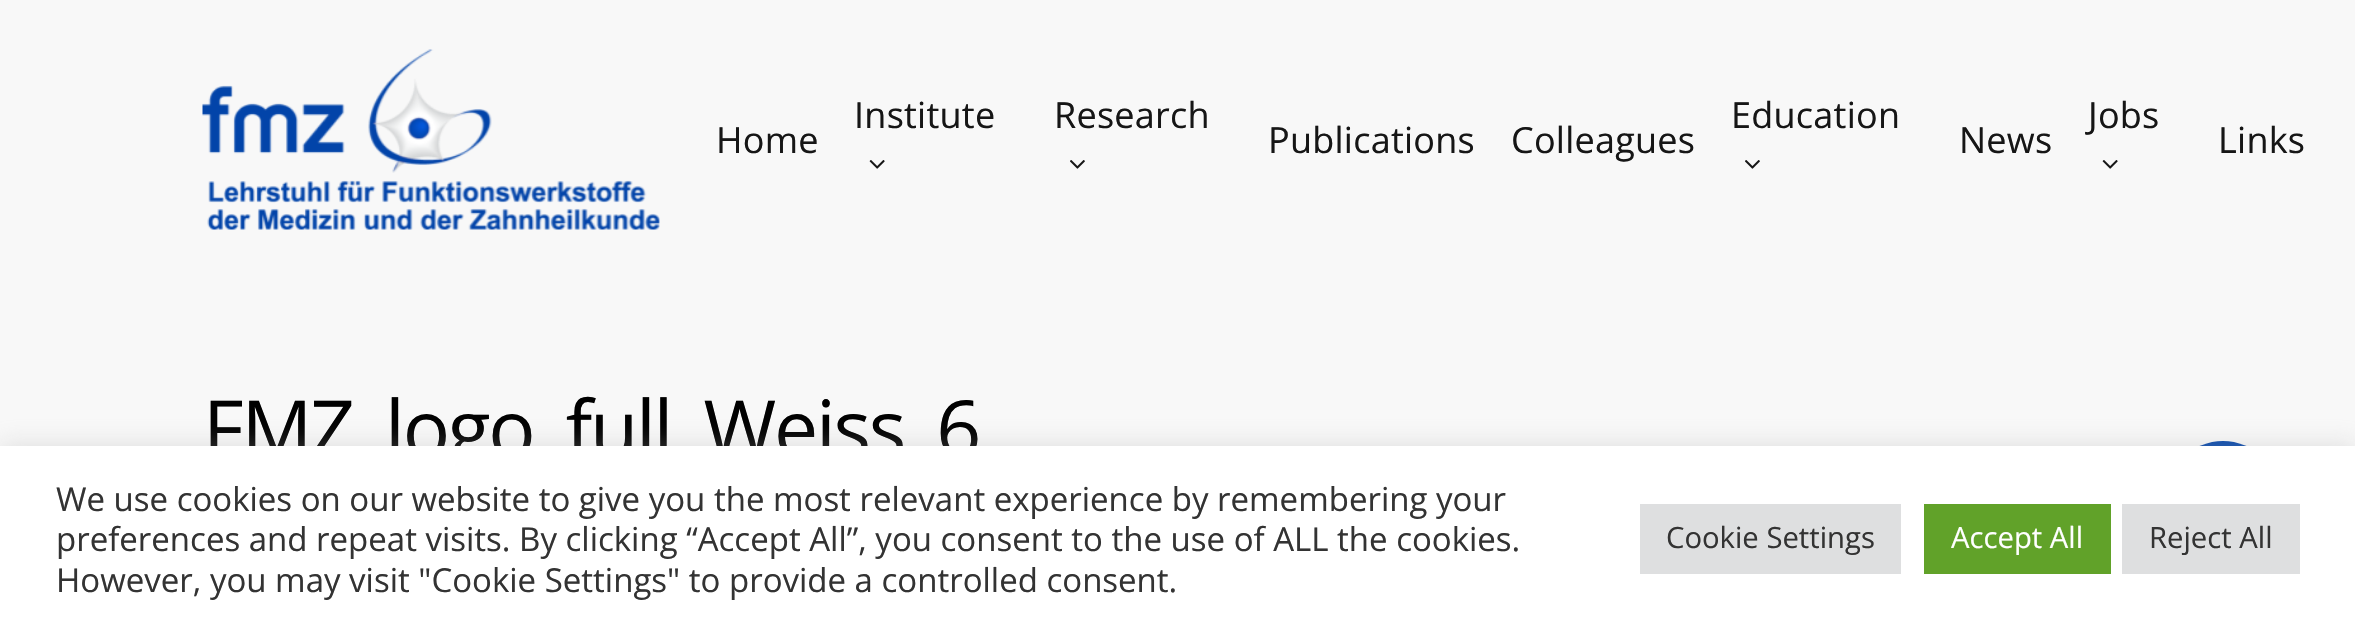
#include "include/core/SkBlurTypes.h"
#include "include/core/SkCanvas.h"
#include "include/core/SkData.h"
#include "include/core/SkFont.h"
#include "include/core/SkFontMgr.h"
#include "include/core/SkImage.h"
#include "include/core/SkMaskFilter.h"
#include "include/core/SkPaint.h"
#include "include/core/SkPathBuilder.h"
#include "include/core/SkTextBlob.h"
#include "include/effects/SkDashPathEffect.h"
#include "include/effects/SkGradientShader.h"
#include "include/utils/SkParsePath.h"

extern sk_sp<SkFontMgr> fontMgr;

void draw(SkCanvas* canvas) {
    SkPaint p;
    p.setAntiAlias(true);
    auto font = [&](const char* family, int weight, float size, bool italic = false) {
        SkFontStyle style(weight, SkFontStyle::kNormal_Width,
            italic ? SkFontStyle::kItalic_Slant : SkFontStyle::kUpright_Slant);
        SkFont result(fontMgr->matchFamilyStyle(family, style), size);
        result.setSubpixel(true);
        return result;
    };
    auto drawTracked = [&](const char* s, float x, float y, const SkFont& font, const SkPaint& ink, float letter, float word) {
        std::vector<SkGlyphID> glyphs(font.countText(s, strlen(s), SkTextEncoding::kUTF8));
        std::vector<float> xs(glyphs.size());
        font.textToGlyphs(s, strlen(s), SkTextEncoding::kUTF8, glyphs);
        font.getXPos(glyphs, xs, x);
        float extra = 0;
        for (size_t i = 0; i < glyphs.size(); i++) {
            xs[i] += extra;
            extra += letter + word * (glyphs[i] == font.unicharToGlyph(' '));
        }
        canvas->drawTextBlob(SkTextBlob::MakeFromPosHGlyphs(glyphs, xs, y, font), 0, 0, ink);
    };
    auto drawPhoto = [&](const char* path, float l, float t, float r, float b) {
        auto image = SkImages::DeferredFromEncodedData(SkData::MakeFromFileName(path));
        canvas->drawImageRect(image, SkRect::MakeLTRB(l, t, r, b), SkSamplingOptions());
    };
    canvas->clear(0xFFF8F8F8);
    drawPhoto("media/1.png", 202, 49, 660, 230);
    auto font1 = font("Open Sans", 400, 36);
    p.setColor(0xFF161616);
    drawTracked("Institute", 854, 128, font1, p, 0.25f, 0);
    drawPhoto("media/2.png", 869, 160, 885, 169);
    drawTracked("Research", 1054, 128, font1, p, 0.25f, 0);
    drawPhoto("media/3.png", 1070, 160, 1085, 169);
    drawTracked("Education", 1731, 128, font1, p, 0.25f, 0);
    drawPhoto("media/3.png", 1745, 160, 1760, 169);
    drawTracked("Jobs", 2088, 128, font1, p, 0.25f, 0);
    drawPhoto("media/2.png", 2102, 160, 2118, 169);
    {
        const struct { const char* s; float x, y; } items[] = {
            {"Home", 716, 153},
            {"Publications", 1268, 153},
            {"Colleagues", 1511, 153},
            {"News", 1959, 153},
            {"Links", 2218, 153},
        };
        for (auto [s, x, y] : items) {
            drawTracked(s, x, y, font1, p, 0.25f, 0);
        }
    }
    auto font2 = font("Open Sans", 400, 78.75f);
    p.setColor(0xFF000000);
    drawTracked("FMZ_logo_full_Weiss_6", 203, 457, font2, p, -2.25f, 0);
    p.setColor(0xFF0244A9);
    canvas->drawRoundRect(SkRect::MakeLTRB(2167, 441, 2279, 554), 56, 56, p);
    p.setColor(0x4DACABAB);
    p.setMaskFilter(SkMaskFilter::MakeBlur(kNormal_SkBlurStyle, 11));
    canvas->drawRect(SkRect::MakeLTRB(0, 443, 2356, 628), p);
    p.setMaskFilter(nullptr);
    p.setColor(0xFFFFFFFF);
    canvas->drawRect(SkRect::MakeLTRB(0, 446, 2355, 628), p);
    auto font3 = font("Open Sans", 400, 33);
    p.setColor(0xFF333333);
    {
        const struct { const char* s; float x, y; } items[] = {
            {"We use cookies on our website to give you the most relevant experience by remembering your", 56, 511},
            {"preferences and repeat visits. By clicking “Accept All”, you consent to the use of ALL the cookies.", 56, 551},
            {"However, you may visit \"Cookie Settings\" to provide a controlled consent.", 56, 592},
        };
        for (auto [s, x, y] : items) {
            canvas->drawString(s, x, y, font3, p);
        }
    }
    p.setColor(0xFFDEDFE0);
    canvas->drawRect(SkRect::MakeLTRB(1640, 504, 1901, 574), p);
    auto font4 = font("Open Sans", 400, 29.25f);
    p.setColor(0xFF333333);
    canvas->drawString("Cookie Settings", 1666, 548, font4, p);
    p.setColor(0xFF61A229);
    canvas->drawRect(SkRect::MakeLTRB(1924, 504, 2111, 574), p);
    p.setColor(0xFFFFFFFF);
    canvas->drawString("Accept All", 1951, 548, font4, p);
    p.setColor(0xFFDEDFE0);
    canvas->drawRect(SkRect::MakeLTRB(2122, 504, 2300, 574), p);
    p.setColor(0xFF333333);
    canvas->drawString("Reject All", 2149, 548, font4, p);
}
